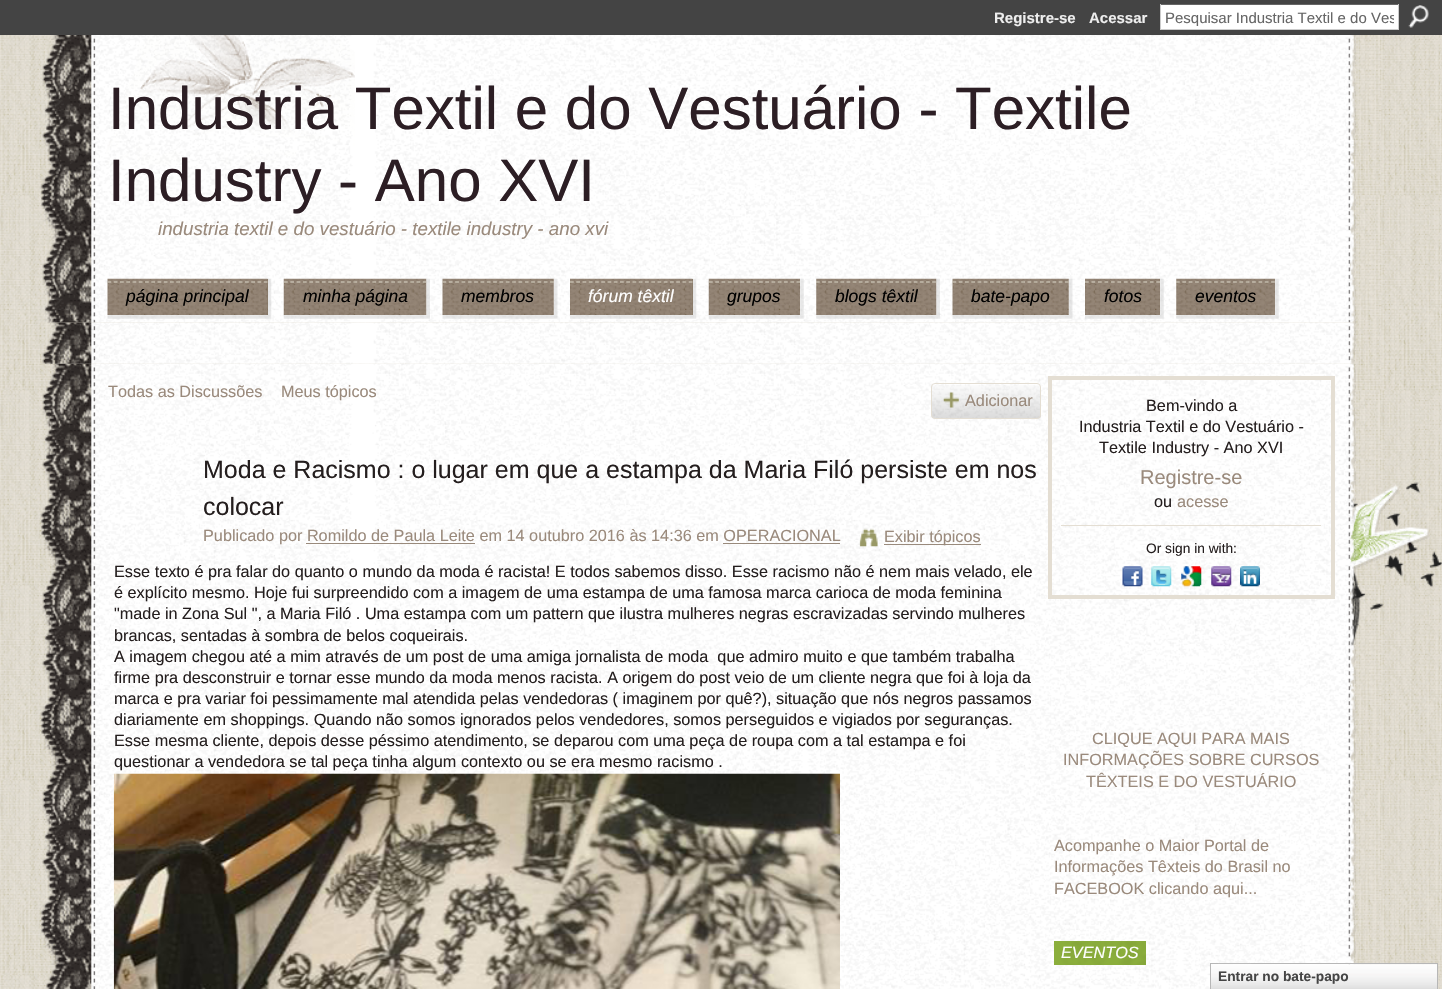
#include "include/core/SkBlurTypes.h"
#include "include/core/SkCanvas.h"
#include "include/core/SkData.h"
#include "include/core/SkFont.h"
#include "include/core/SkFontMgr.h"
#include "include/core/SkImage.h"
#include "include/core/SkMaskFilter.h"
#include "include/core/SkPaint.h"
#include "include/core/SkPathBuilder.h"
#include "include/core/SkTextBlob.h"
#include "include/effects/SkDashPathEffect.h"
#include "include/effects/SkGradientShader.h"
#include "include/utils/SkParsePath.h"

extern sk_sp<SkFontMgr> fontMgr;

void draw(SkCanvas* canvas) {
    SkPaint p;
    p.setAntiAlias(true);
    auto font = [&](const char* family, int weight, float size, bool italic = false) {
        SkFontStyle style(weight, SkFontStyle::kNormal_Width,
            italic ? SkFontStyle::kItalic_Slant : SkFontStyle::kUpright_Slant);
        SkFont result(fontMgr->matchFamilyStyle(family, style), size);
        result.setSubpixel(true);
        return result;
    };
    auto drawPhoto = [&](const char* path, float l, float t, float r, float b) {
        auto image = SkImages::DeferredFromEncodedData(SkData::MakeFromFileName(path));
        canvas->drawImageRect(image, SkRect::MakeLTRB(l, t, r, b), SkSamplingOptions());
    };
    canvas->clear(0xFFFFFFFF);
    drawPhoto("media/1.png", 0, 35, 1442, 989);
    p.setColor(0xFF444444);
    canvas->drawRect(SkRect::MakeLTRB(0, 0, 1442, 35), p);
    auto font1 = font("Liberation Sans", 700, 15);
    p.setColor(0xFFEEEEEE);
    canvas->drawString("Registre-se", 994, 23, font1, p);
    canvas->drawString("Acessar", 1089, 23, font1, p);
    {
        const struct { float l, t, r, b; SkColor color; } items[] = {
            {1161, 5, 1398, 29, 0xFFFFFFFF},
            {1160, 4, 1399, 5, 0xFF666666},
            {1398, 4, 1399, 30, 0xFFCCCCCC},
            {1160, 29, 1399, 30, 0xFFCCCCCC},
            {1160, 4, 1161, 30, 0xFFCCCCCC},
        };
        for (auto [l, t, r, b, color] : items) {
            p.setColor(color);
            canvas->drawRect(SkRect::MakeLTRB(l, t, r, b), p);
        }
    }
    canvas->save();
    canvas->clipRect(SkRect::MakeLTRB(1165, 9, 1394, 26));
    auto font2 = font("Liberation Sans", 400, 15);
    p.setColor(0xFF666666);
    canvas->drawString("Pesquisar Industria Textil e do Ves", 1165, 23, font2, p);
    canvas->restore();
    drawPhoto("media/2.png", 1408, 5, 1429, 28);
    drawPhoto("media/3.png", 40, 35, 1356, 323);
    drawPhoto("media/4.png", 106, 35, 355, 165);
    auto font3 = font("Liberation Sans", 400, 60);
    p.setColor(0xFF2C1E24);
    canvas->drawString("Industria Textil e do Vestuário - Textile", 108, 129, font3, p);
    canvas->drawString("Industry - Ano XVI", 108, 201, font3, p);
    auto font4 = font("Liberation Sans", 400, 18.75f, true);
    p.setColor(0xFF9A8A7C);
    canvas->drawString("industria textil e do vestuário - textile industry - ano xvi", 158, 235, font4, p);
    drawPhoto("media/5.png", 107, 278, 272, 319);
    p.setColor(0xFF857664);
    canvas->drawRect(SkRect::MakeLTRB(267, 279, 268, 315), p);
    drawPhoto("media/6.png", 107, 278, 268, 315);
    p.setStyle(SkPaint::kStroke_Style);
    p.setStrokeWidth(1.2f);
    p.setColor(0xFFDDD8C9);
    p.setPathEffect(SkDashPathEffect::Make({{3.75f, 2.5f}}, 0));
    canvas->drawPath(SkPathBuilder().moveTo(107.5f, 282).lineTo(267.5f, 282).detach(), p);
    p.setPathEffect(nullptr);
    auto font5 = font("Liberation Sans", 400, 17.5f, true);
    p.setStyle(SkPaint::kFill_Style);
    p.setColor(0xFF000000);
    canvas->drawString("página principal", 126, 302, font5, p);
    drawPhoto("media/7.png", 283, 278, 430, 319);
    drawPhoto("media/8.png", 283, 278, 427, 315);
    p.setStyle(SkPaint::kStroke_Style);
    p.setColor(0xFFDDD8C9);
    p.setPathEffect(SkDashPathEffect::Make({{3.75f, 2.56f}}, 0));
    canvas->drawPath(SkPathBuilder().moveTo(284, 282).lineTo(426, 282).detach(), p);
    p.setPathEffect(nullptr);
    p.setStyle(SkPaint::kFill_Style);
    p.setColor(0xFF000000);
    canvas->drawString("minha página", 303, 302, font5, p);
    drawPhoto("media/9.png", 442, 278, 558, 319);
    drawPhoto("media/10.png", 442, 278, 554, 315);
    p.setStyle(SkPaint::kStroke_Style);
    p.setColor(0xFFDDD8C9);
    p.setPathEffect(SkDashPathEffect::Make({{3.75f, 2.58f}}, 0));
    canvas->drawPath(SkPathBuilder().moveTo(442.5f, 282).lineTo(554, 282).detach(), p);
    p.setPathEffect(nullptr);
    p.setStyle(SkPaint::kFill_Style);
    p.setColor(0xFF000000);
    canvas->drawString("membros", 461, 302, font5, p);
    drawPhoto("media/11.png", 570, 278, 697, 319);
    p.setColor(0xFF857664);
    canvas->drawRect(SkRect::MakeLTRB(692, 279, 693, 315), p);
    drawPhoto("media/12.png", 570, 278, 693, 315);
    p.setStyle(SkPaint::kStroke_Style);
    p.setColor(0xFFDDD8C9);
    p.setPathEffect(SkDashPathEffect::Make({{3.75f, 2.5f}}, 0));
    canvas->drawPath(SkPathBuilder().moveTo(570, 282).lineTo(692.5f, 282).detach(), p);
    p.setPathEffect(nullptr);
    p.setStyle(SkPaint::kFill_Style);
    p.setColor(0xFFFFFFFF);
    canvas->drawString("fórum têxtil", 588, 302, font5, p);
    drawPhoto("media/13.png", 708, 278, 804, 319);
    drawPhoto("media/14.png", 708, 278, 800, 315);
    p.setStyle(SkPaint::kStroke_Style);
    p.setColor(0xFFDDD8C9);
    p.setPathEffect(SkDashPathEffect::Make({{3.75f, 2.5f}}, 0));
    canvas->drawPath(SkPathBuilder().moveTo(709, 282).lineTo(800, 282).detach(), p);
    p.setPathEffect(nullptr);
    p.setStyle(SkPaint::kFill_Style);
    p.setColor(0xFF000000);
    canvas->drawString("grupos", 727, 302, font5, p);
    drawPhoto("media/15.png", 816, 278, 940, 319);
    drawPhoto("media/16.png", 816, 278, 937, 315);
    p.setStyle(SkPaint::kStroke_Style);
    p.setColor(0xFFDDD8C9);
    p.setPathEffect(SkDashPathEffect::Make({{3.75f, 2.36f}}, 0));
    canvas->drawPath(SkPathBuilder().moveTo(816, 282).lineTo(936, 282).detach(), p);
    p.setPathEffect(nullptr);
    p.setStyle(SkPaint::kFill_Style);
    p.setColor(0xFF000000);
    canvas->drawString("blogs têxtil", 835, 302, font5, p);
    drawPhoto("media/17.png", 952, 278, 1073, 319);
    drawPhoto("media/18.png", 952, 278, 1069, 315);
    p.setStyle(SkPaint::kStroke_Style);
    p.setColor(0xFFDDD8C9);
    p.setPathEffect(SkDashPathEffect::Make({{3.75f, 2.5f}}, 0));
    canvas->drawPath(SkPathBuilder().moveTo(952.5f, 282).lineTo(1069, 282).detach(), p);
    p.setPathEffect(nullptr);
    p.setStyle(SkPaint::kFill_Style);
    p.setColor(0xFF000000);
    canvas->drawString("bate-papo", 971, 302, font5, p);
    drawPhoto("media/19.png", 1085, 278, 1164, 319);
    drawPhoto("media/20.png", 1085, 278, 1160, 315);
    p.setStyle(SkPaint::kStroke_Style);
    p.setColor(0xFFDDD8C9);
    p.setPathEffect(SkDashPathEffect::Make({{3.75f, 2.73f}}, 0));
    canvas->drawPath(SkPathBuilder().moveTo(1085, 282).lineTo(1160, 282).detach(), p);
    p.setPathEffect(nullptr);
    p.setStyle(SkPaint::kFill_Style);
    p.setColor(0xFF000000);
    canvas->drawString("fotos", 1104, 302, font5, p);
    drawPhoto("media/21.png", 1176, 278, 1279, 319);
    drawPhoto("media/22.png", 1176, 278, 1275, 315);
    p.setStyle(SkPaint::kStroke_Style);
    p.setColor(0xFFDDD8C9);
    p.setPathEffect(SkDashPathEffect::Make({{3.75f, 2.59f}}, 0));
    canvas->drawPath(SkPathBuilder().moveTo(1176, 282).lineTo(1275, 282).detach(), p);
    p.setPathEffect(nullptr);
    p.setStyle(SkPaint::kFill_Style);
    p.setColor(0xFF000000);
    canvas->drawString("eventos", 1195, 302, font5, p);
    drawPhoto("media/23.png", 42, 322, 1356, 364);
    drawPhoto("media/24.png", 1348, 482, 1442, 668);
    drawPhoto("media/25.png", 40, 363, 1356, 989);
    auto font6 = font("Liberation Sans", 400, 16.25f);
    p.setColor(0xFF9A8A7C);
    canvas->drawString("Todas as Discussões", 108, 397, font6, p);
    canvas->drawString("Meus tópicos", 281, 397, font6, p);
    drawPhoto("media/26.png", 931, 385, 1041, 419);
    p.setStyle(SkPaint::kStroke_Style);
    p.setStrokeWidth(1);
    p.setColor(0xFFE4DED3);
    canvas->drawRoundRect(SkRect::MakeLTRB(931.5f, 383.5f, 1040.5f, 418.5f), 3.5f, 3.5f, p);
    drawPhoto("media/27.png", 943, 392, 959, 408);
    p.setStyle(SkPaint::kFill_Style);
    p.setColor(0xFF9A8A7C);
    canvas->drawString("Adicionar", 965, 406, font6, p);
    auto font7 = font("Liberation Sans", 400, 25);
    p.setColor(0xFF241E1E);
    canvas->drawString("Moda e Racismo : o lugar em que a estampa da Maria Filó persiste em nos", 203, 478, font7, p);
    canvas->drawString("colocar", 203, 515, font7, p);
    p.setColor(0xFF9A8A7C);
    canvas->drawString("Publicado por Romildo de Paula Leite em 14 outubro 2016 às 14:36 em OPERACIONAL", 203, 541, font6, p);
    p.setColor(0xFF998A7C);
    canvas->drawRect(SkRect::MakeLTRB(306, 543, 475, 544), p);
    canvas->drawRect(SkRect::MakeLTRB(723, 543, 840, 544), p);
    drawPhoto("media/28.png", 859, 528, 878, 547);
    canvas->drawRect(SkRect::MakeLTRB(884, 544, 981, 545), p);
    p.setColor(0xFF9A8A7C);
    canvas->drawString("Exibir tópicos", 884, 542, font6, p);
    p.setColor(0xFF241E1E);
    {
        const struct { const char* s; float x, y; } items[] = {
            {"Esse texto é pra falar do quanto o mundo da moda é racista! E todos sabemos disso. Esse racismo não é nem mais velado, ele", 114, 577},
            {"é explícito mesmo. Hoje fui surpreendido com a imagem de uma estampa de uma famosa marca carioca de moda feminina", 114, 598},
            {"\"made in Zona Sul \", a Maria Filó . Uma estampa com um pattern que ilustra mulheres negras escravizadas servindo mulheres", 114, 619},
            {"brancas, sentadas à sombra de belos coqueirais.", 114, 641},
            {"A imagem chegou até a mim através de um post de uma amiga jornalista de moda  que admiro muito e que também trabalha", 114, 662},
            {"firme pra desconstruir e tornar esse mundo da moda menos racista. A origem do post veio de um cliente negra que foi à loja da", 114, 683},
            {"marca e pra variar foi pessimamente mal atendida pelas vendedoras ( imaginem por quê?), situação que nós negros passamos", 114, 704},
            {"diariamente em shoppings. Quando não somos ignorados pelos vendedores, somos perseguidos e vigiados por seguranças.", 114, 725},
            {"Esse mesma cliente, depois desse péssimo atendimento, se deparou com uma peça de roupa com a tal estampa e foi", 114, 746},
            {"questionar a vendedora se tal peça tinha algum contexto ou se era mesmo racismo .", 114, 767},
        };
        for (auto [s, x, y] : items) {
            canvas->drawString(s, x, y, font6, p);
        }
    }
    drawPhoto("media/29.png", 113, 773, 840, 989);
    p.setStyle(SkPaint::kStroke_Style);
    p.setStrokeWidth(4);
    p.setColor(0xFFE4DED3);
    canvas->drawRect(SkRect::MakeLTRB(1050, 378, 1333, 597), p);
    p.setStyle(SkPaint::kFill_Style);
    p.setColor(0xFF241E1E);
    {
        const struct { const char* s; float x, y; } items[] = {
            {"Bem-vindo a", 1146, 411},
            {"Industria Textil e do Vestuário -", 1079, 432},
            {"Textile Industry - Ano XVI", 1099, 453},
        };
        for (auto [s, x, y] : items) {
            canvas->drawString(s, x, y, font6, p);
        }
    }
    auto font8 = font("Liberation Sans", 400, 20);
    p.setColor(0xFF9A8A7C);
    canvas->drawString("Registre-se", 1140, 484, font8, p);
    p.setColor(0xFF241E1E);
    canvas->drawString("ou", 1154, 507, font6, p);
    p.setColor(0xFF9A8A7C);
    canvas->drawString("acesse", 1177, 507, font6, p);
    p.setColor(0xFFE4DED3);
    canvas->drawRect(SkRect::MakeLTRB(1061, 525, 1321, 526), p);
    auto font9 = font("Liberation Sans", 400, 13.75f);
    p.setColor(0xFF241E1E);
    canvas->drawString("Or sign in with:", 1146, 553, font9, p);
    drawPhoto("media/30.png", 1122, 566, 1143, 587);
    drawPhoto("media/31.png", 1151, 566, 1172, 587);
    drawPhoto("media/32.png", 1181, 566, 1202, 587);
    drawPhoto("media/33.png", 1211, 566, 1232, 587);
    drawPhoto("media/34.png", 1240, 566, 1260, 587);
    p.setColor(0xFF9A8A7C);
    {
        const struct { const char* s; float x, y; } items[] = {
            {"CLIQUE AQUI PARA MAIS", 1092, 744},
            {"INFORMAÇÕES SOBRE CURSOS", 1063, 765},
            {"TÊXTEIS E DO VESTUÁRIO", 1086, 787},
            {"Acompanhe o Maior Portal de", 1054, 851},
            {"Informações Têxteis do Brasil no", 1054, 872},
            {"FACEBOOK clicando aqui...", 1054, 894},
        };
        for (auto [s, x, y] : items) {
            canvas->drawString(s, x, y, font6, p);
        }
    }
    p.setColor(0xFF8BAE3C);
    canvas->drawRect(SkRect::MakeLTRB(1054, 941, 1146, 965), p);
    drawPhoto("media/35.png", 1061, 941, 1146, 965);
    auto font10 = font("Liberation Sans", 400, 16.25f, true);
    p.setColor(0xFFFFFFFF);
    canvas->drawString("EVENTOS", 1061, 958, font10, p);
    drawPhoto("media/36.png", 1211, 964, 1437, 989);
    p.setStyle(SkPaint::kStroke_Style);
    p.setStrokeWidth(1);
    p.setColor(0xFFB7B7B7);
    canvas->drawRect(SkRect::MakeLTRB(1210.5f, 963.5f, 1437.5f, 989.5f), p);
    p.setStyle(SkPaint::kFill_Style);
    p.setColor(0xFFBBBBBB);
    canvas->drawRect(SkRect::MakeLTRB(1218, 963, 1251, 964), p);
    auto font11 = font("Liberation Sans", 700, 13.75f);
    p.setColor(0xFF454545);
    canvas->drawString("Entrar no bate-papo", 1218, 981, font11, p);
}
